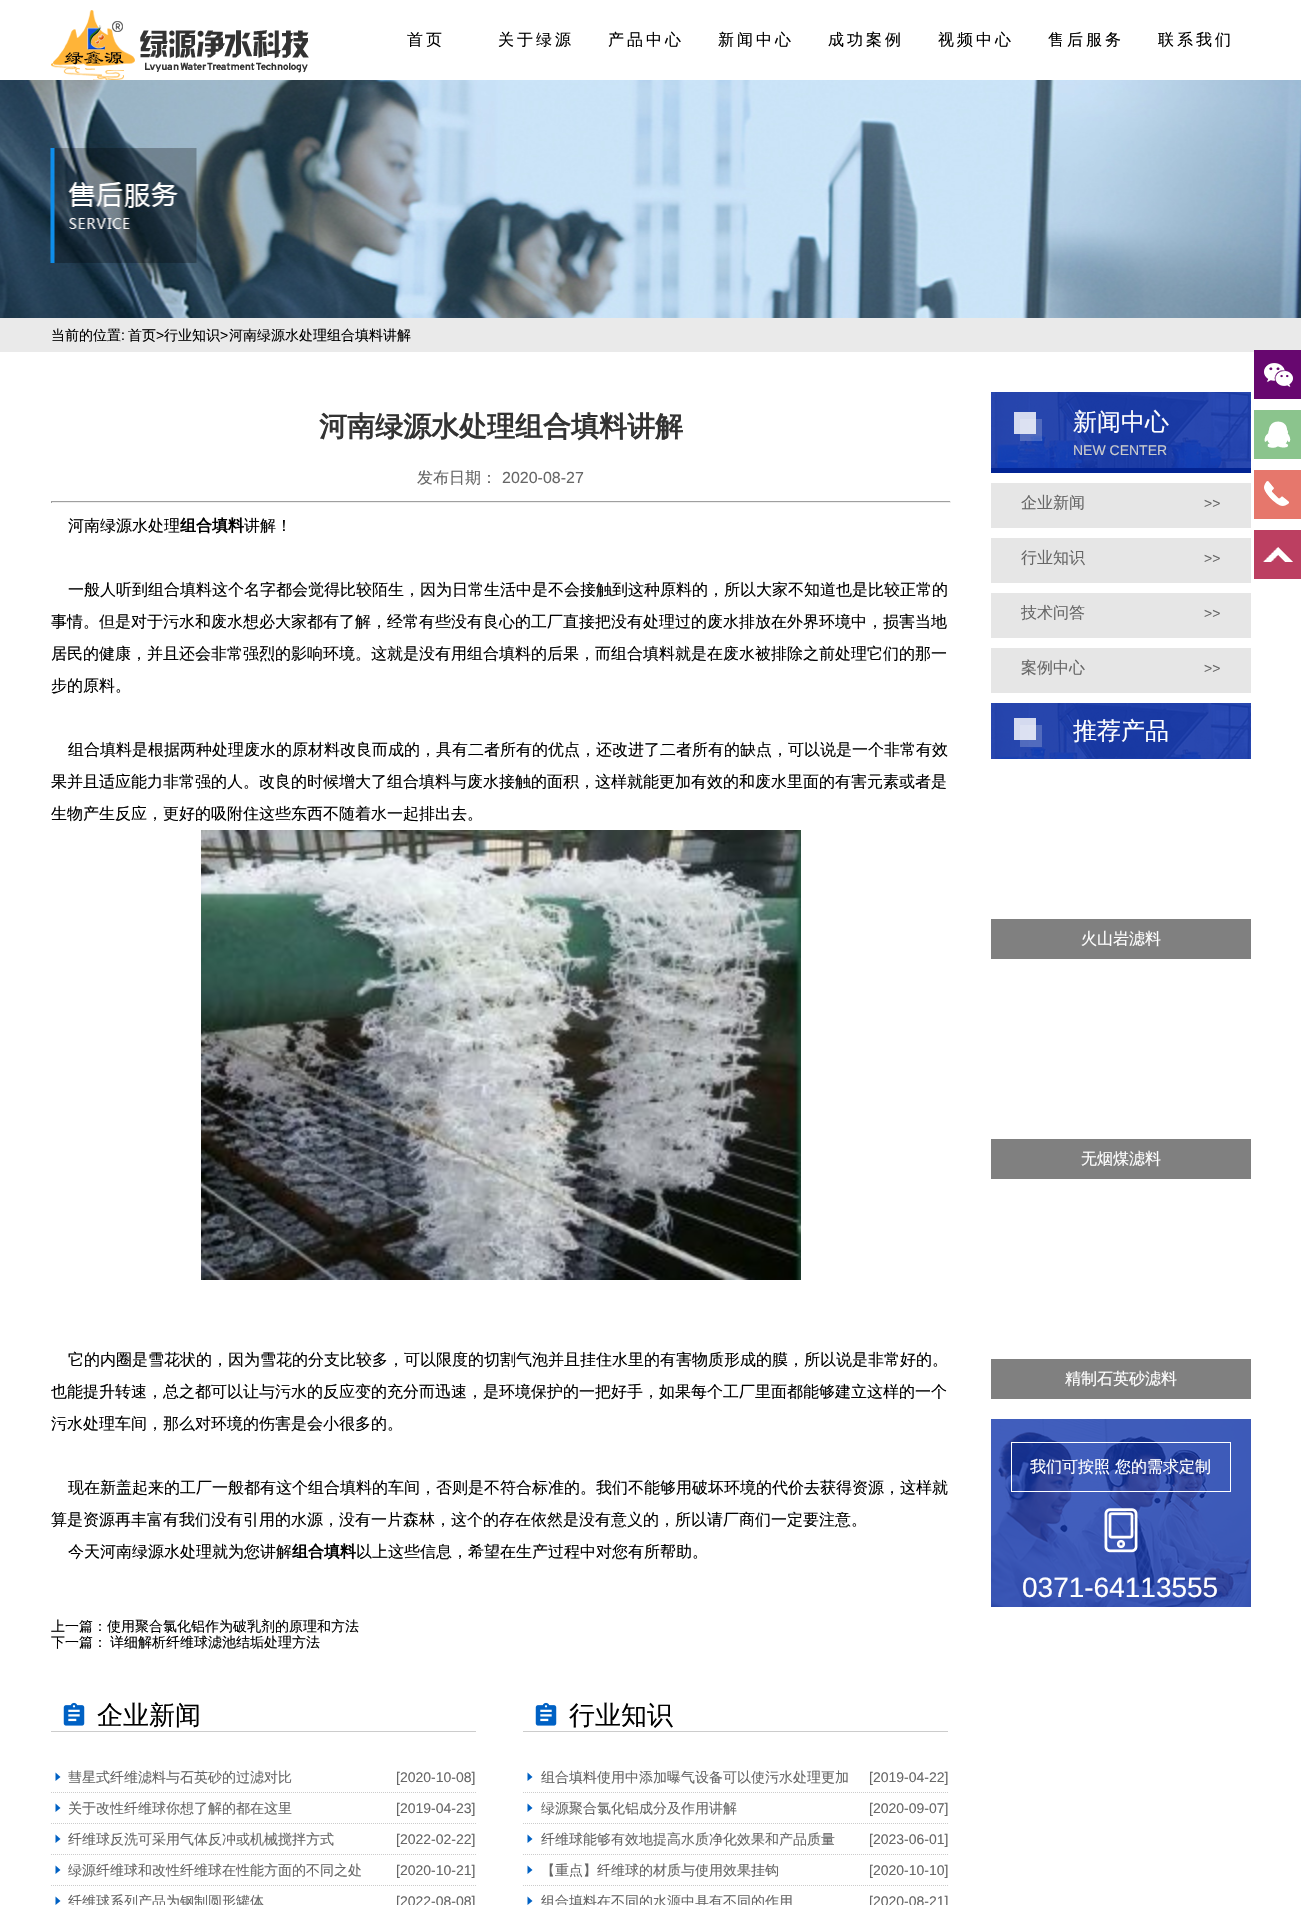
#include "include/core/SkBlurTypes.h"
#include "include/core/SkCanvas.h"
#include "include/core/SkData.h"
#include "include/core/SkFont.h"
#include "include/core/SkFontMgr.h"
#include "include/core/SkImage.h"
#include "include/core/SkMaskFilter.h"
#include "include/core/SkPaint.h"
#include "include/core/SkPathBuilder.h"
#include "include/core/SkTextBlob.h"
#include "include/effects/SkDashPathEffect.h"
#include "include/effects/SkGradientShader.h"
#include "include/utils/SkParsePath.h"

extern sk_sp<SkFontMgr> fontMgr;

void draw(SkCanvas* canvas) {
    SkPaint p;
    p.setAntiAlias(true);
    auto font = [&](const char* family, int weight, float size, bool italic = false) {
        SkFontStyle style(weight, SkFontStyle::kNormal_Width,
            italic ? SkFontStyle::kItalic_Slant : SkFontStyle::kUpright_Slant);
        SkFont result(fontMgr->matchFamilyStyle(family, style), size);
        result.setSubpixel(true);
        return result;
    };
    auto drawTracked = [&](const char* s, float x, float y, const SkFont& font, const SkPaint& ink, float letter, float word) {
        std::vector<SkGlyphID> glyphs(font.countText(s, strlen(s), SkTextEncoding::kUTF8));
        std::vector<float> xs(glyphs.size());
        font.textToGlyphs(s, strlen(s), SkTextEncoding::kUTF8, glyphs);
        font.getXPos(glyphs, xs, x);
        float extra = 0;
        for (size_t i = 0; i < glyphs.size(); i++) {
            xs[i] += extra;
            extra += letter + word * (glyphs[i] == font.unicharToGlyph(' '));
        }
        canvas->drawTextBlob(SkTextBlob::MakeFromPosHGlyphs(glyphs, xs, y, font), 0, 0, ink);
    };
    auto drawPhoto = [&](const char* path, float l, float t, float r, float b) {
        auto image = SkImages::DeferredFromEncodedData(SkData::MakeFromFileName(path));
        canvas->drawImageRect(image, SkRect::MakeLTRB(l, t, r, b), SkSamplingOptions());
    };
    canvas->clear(0xFFFFFFFF);
    drawPhoto("media/1.png", 51, 10, 309, 80);
    auto font1 = font("WenQuanYi Zen Hei", 500, 16);
    p.setColor(0xFF000000);
    {
        const struct { const char* s; float x, y; } items[] = {
            {"首页", 407, 45},
            {"关于绿源", 498, 45},
            {"产品中心", 608, 45},
            {"新闻中心", 718, 45},
            {"成功案例", 828, 45},
            {"视频中心", 938, 45},
            {"售后服务", 1048, 45},
            {"联系我们", 1158, 45},
        };
        for (auto [s, x, y] : items) {
            drawTracked(s, x, y, font1, p, 3, 0);
        }
    }
    drawPhoto("media/2.png", 0, 80, 1301, 318);
    p.setColor(0xFFEAEAEA);
    canvas->drawRect(SkRect::MakeLTRB(0, 318, 1301, 352), p);
    auto font2 = font("WenQuanYi Zen Hei", 500, 14);
    p.setColor(0xFF000000);
    canvas->drawString("当前的位置", 51, 340, font2, p);
    auto font3 = font("Liberation Sans", 400, 14);
    canvas->drawString(":", 121, 340, font3, p);
    canvas->drawString("首页", 128, 340, font2, p);
    canvas->drawString(">", 156, 340, font3, p);
    canvas->drawString("行业知识", 164, 340, font2, p);
    canvas->drawString(">", 220, 340, font3, p);
    canvas->drawString("河南绿源水处理组合填料讲解", 229, 340, font2, p);
    auto font4 = font("WenQuanYi Zen Hei", 700, 28);
    p.setColor(0xFF333333);
    canvas->drawString("河南绿源水处理组合填料讲解", 319, 436, font4, p);
    p.setColor(0xFF666666);
    canvas->drawString("发布日期：", 417, 483, font1, p);
    auto font5 = font("Liberation Sans", 400, 16);
    canvas->drawString("2020-08-27", 502, 483, font5, p);
    {
        const struct { float l, t, r, b; SkColor color; } items[] = {
            {51, 501, 951, 502, 0xFF9F9F9F},
            {950, 501, 951, 503, 0xFFEEEEEE},
            {51, 502, 951, 503, 0xFFEEEEEE},
            {51, 501, 52, 503, 0xFF9F9F9F},
        };
        for (auto [l, t, r, b, color] : items) {
            p.setColor(color);
            canvas->drawRect(SkRect::MakeLTRB(l, t, r, b), p);
        }
    }
    p.setColor(0xFF000000);
    canvas->drawString("河南绿源水处理", 68, 531, font1, p);
    auto font6 = font("WenQuanYi Zen Hei", 700, 16);
    canvas->drawString("组合填料", 180, 531, font6, p);
    {
        const struct { const char* s; float x, y; } items[] = {
            {"讲解！", 244, 531},
            {"一般人听到组合填料这个名字都会觉得比较陌生，因为日常生活中是不会接触到这种原料的，所以大家不知道也是比较正常的", 68, 595},
            {"事情。但是对于污水和废水想必大家都有了解，经常有些没有良心的工厂直接把没有处理过的废水排放在外界环境中，损害当地", 51, 627},
            {"居民的健康，并且还会非常强烈的影响环境。这就是没有用组合填料的后果，而组合填料就是在废水被排除之前处理它们的那一", 51, 659},
            {"步的原料。", 51, 691},
            {"组合填料是根据两种处理废水的原材料改良而成的，具有二者所有的优点，还改进了二者所有的缺点，可以说是一个非常有效", 68, 755},
            {"果并且适应能力非常强的人。改良的时候增大了组合填料与废水接触的面积，这样就能更加有效的和废水里面的有害元素或者是", 51, 787},
            {"生物产生反应，更好的吸附住这些东西不随着水一起排出去。", 51, 819},
        };
        for (auto [s, x, y] : items) {
            canvas->drawString(s, x, y, font1, p);
        }
    }
    drawPhoto("media/3.png", 201, 830, 801, 1280);
    {
        const struct { const char* s; float x, y; } items[] = {
            {"它的内圈是雪花状的，因为雪花的分支比较多，可以限度的切割气泡并且挂住水里的有害物质形成的膜，所以说是非常好的。", 68, 1365},
            {"也能提升转速，总之都可以让与污水的反应变的充分而迅速，是环境保护的一把好手，如果每个工厂里面都能够建立这样的一个", 51, 1397},
            {"污水处理车间，那么对环境的伤害是会小很多的。", 51, 1429},
            {"现在新盖起来的工厂一般都有这个组合填料的车间，否则是不符合标准的。我们不能够用破坏环境的代价去获得资源，这样就", 68, 1493},
            {"算是资源再丰富有我们没有引用的水源，没有一片森林，这个的存在依然是没有意义的，所以请厂商们一定要注意。", 51, 1525},
            {"今天河南绿源水处理就为您讲解", 68, 1557},
        };
        for (auto [s, x, y] : items) {
            canvas->drawString(s, x, y, font1, p);
        }
    }
    canvas->drawString("组合填料", 292, 1557, font6, p);
    canvas->drawString("以上这些信息，希望在生产过程中对您有所帮助。", 356, 1557, font1, p);
    {
        const struct { const char* s; float x, y; } items[] = {
            {"上一篇：使用聚合氯化铝作为破乳剂的原理和方法", 51, 1631},
            {"下一篇：", 51, 1647},
            {"详细解析纤维球滤池结垢处理方法", 110, 1647},
        };
        for (auto [s, x, y] : items) {
            canvas->drawString(s, x, y, font2, p);
        }
    }
    p.setColor(0xFFCCCCCC);
    canvas->drawRect(SkRect::MakeLTRB(51, 1731, 476, 1732), p);
    drawPhoto("media/4.png", 63, 1702, 85, 1726);
    auto font7 = font("WenQuanYi Zen Hei", 500, 26);
    p.setColor(0xFF000000);
    canvas->drawString("企业新闻", 97, 1724, font7, p);
    p.setStyle(SkPaint::kStroke_Style);
    p.setStrokeWidth(1);
    p.setColor(0xFFCCCCCC);
    p.setPathEffect(SkDashPathEffect::Make({{1, 1}}, 0));
    canvas->drawPath(SkPathBuilder().moveTo(51, 1792.5f).lineTo(476, 1792.5f).detach(), p);
    p.setPathEffect(nullptr);
    p.setStyle(SkPaint::kFill_Style);
    p.setColor(0xFF0061C4);
    canvas->drawPath(SkPathBuilder().moveTo(55.5f, 1781).lineTo(55.5f, 1772.5f).lineTo(60.5f, 1777).close().detach(), p);
    p.setColor(0xFF666666);
    canvas->drawString("彗星式纤维滤料与石英砂的过滤对比", 68, 1782, font2, p);
    canvas->drawString("[2020-10-08]", 396, 1782, font3, p);
    p.setStyle(SkPaint::kStroke_Style);
    p.setColor(0xFFCCCCCC);
    p.setPathEffect(SkDashPathEffect::Make({{1, 1}}, 0));
    canvas->drawPath(SkPathBuilder().moveTo(51, 1823.5f).lineTo(476, 1823.5f).detach(), p);
    p.setPathEffect(nullptr);
    p.setStyle(SkPaint::kFill_Style);
    p.setColor(0xFF0061C4);
    canvas->drawPath(SkPathBuilder().moveTo(55.5f, 1812).lineTo(55.5f, 1803.5f).lineTo(60.5f, 1808).close().detach(), p);
    p.setColor(0xFF666666);
    canvas->drawString("关于改性纤维球你想了解的都在这里", 68, 1813, font2, p);
    canvas->drawString("[2019-04-23]", 396, 1813, font3, p);
    p.setStyle(SkPaint::kStroke_Style);
    p.setColor(0xFFCCCCCC);
    p.setPathEffect(SkDashPathEffect::Make({{1, 1}}, 0));
    canvas->drawPath(SkPathBuilder().moveTo(51, 1854.5f).lineTo(476, 1854.5f).detach(), p);
    p.setPathEffect(nullptr);
    p.setStyle(SkPaint::kFill_Style);
    p.setColor(0xFF0061C4);
    canvas->drawPath(SkPathBuilder().moveTo(55.5f, 1843).lineTo(55.5f, 1834.5f).lineTo(60.5f, 1839).close().detach(), p);
    p.setColor(0xFF666666);
    canvas->drawString("纤维球反洗可采用气体反冲或机械搅拌方式", 68, 1844, font2, p);
    canvas->drawString("[2022-02-22]", 396, 1844, font3, p);
    p.setStyle(SkPaint::kStroke_Style);
    p.setColor(0xFFCCCCCC);
    p.setPathEffect(SkDashPathEffect::Make({{1, 1}}, 0));
    canvas->drawPath(SkPathBuilder().moveTo(51, 1885.5f).lineTo(476, 1885.5f).detach(), p);
    p.setPathEffect(nullptr);
    p.setStyle(SkPaint::kFill_Style);
    p.setColor(0xFF0061C4);
    canvas->drawPath(SkPathBuilder().moveTo(55.5f, 1874).lineTo(55.5f, 1865.5f).lineTo(60.5f, 1870).close().detach(), p);
    p.setColor(0xFF666666);
    canvas->drawString("绿源纤维球和改性纤维球在性能方面的不同之处", 68, 1875, font2, p);
    canvas->drawString("[2020-10-21]", 396, 1875, font3, p);
    p.setColor(0xFF0061C4);
    canvas->drawPath(SkPathBuilder().moveTo(55.5f, 1905).lineTo(55.5f, 1896.5f).lineTo(60.5f, 1901).close().detach(), p);
    p.setColor(0xFF666666);
    canvas->drawString("纤维球系列产品为钢制圆形罐体", 68, 1906, font2, p);
    canvas->drawString("[2022-08-08]", 396, 1906, font3, p);
    p.setColor(0xFFCCCCCC);
    canvas->drawRect(SkRect::MakeLTRB(523, 1731, 948, 1732), p);
    drawPhoto("media/4.png", 535, 1702, 557, 1726);
    p.setColor(0xFF000000);
    canvas->drawString("行业知识", 569, 1724, font7, p);
    p.setStyle(SkPaint::kStroke_Style);
    p.setColor(0xFFCCCCCC);
    p.setPathEffect(SkDashPathEffect::Make({{1, 1}}, 0));
    canvas->drawPath(SkPathBuilder().moveTo(523, 1792.5f).lineTo(948, 1792.5f).detach(), p);
    p.setPathEffect(nullptr);
    p.setStyle(SkPaint::kFill_Style);
    p.setColor(0xFF0061C4);
    canvas->drawPath(SkPathBuilder().moveTo(527.5f, 1781).lineTo(527.5f, 1772.5f).lineTo(532.5f, 1777).close().detach(), p);
    p.setColor(0xFF666666);
    canvas->drawString("组合填料使用中添加曝气设备可以使污水处理更加", 541, 1782, font2, p);
    canvas->drawString("[2019-04-22]", 869, 1782, font3, p);
    p.setStyle(SkPaint::kStroke_Style);
    p.setColor(0xFFCCCCCC);
    p.setPathEffect(SkDashPathEffect::Make({{1, 1}}, 0));
    canvas->drawPath(SkPathBuilder().moveTo(523, 1823.5f).lineTo(948, 1823.5f).detach(), p);
    p.setPathEffect(nullptr);
    p.setStyle(SkPaint::kFill_Style);
    p.setColor(0xFF0061C4);
    canvas->drawPath(SkPathBuilder().moveTo(527.5f, 1812).lineTo(527.5f, 1803.5f).lineTo(532.5f, 1808).close().detach(), p);
    p.setColor(0xFF666666);
    canvas->drawString("绿源聚合氯化铝成分及作用讲解", 541, 1813, font2, p);
    canvas->drawString("[2020-09-07]", 869, 1813, font3, p);
    p.setStyle(SkPaint::kStroke_Style);
    p.setColor(0xFFCCCCCC);
    p.setPathEffect(SkDashPathEffect::Make({{1, 1}}, 0));
    canvas->drawPath(SkPathBuilder().moveTo(523, 1854.5f).lineTo(948, 1854.5f).detach(), p);
    p.setPathEffect(nullptr);
    p.setStyle(SkPaint::kFill_Style);
    p.setColor(0xFF0061C4);
    canvas->drawPath(SkPathBuilder().moveTo(527.5f, 1843).lineTo(527.5f, 1834.5f).lineTo(532.5f, 1839).close().detach(), p);
    p.setColor(0xFF666666);
    canvas->drawString("纤维球能够有效地提高水质净化效果和产品质量", 541, 1844, font2, p);
    canvas->drawString("[2023-06-01]", 869, 1844, font3, p);
    p.setStyle(SkPaint::kStroke_Style);
    p.setColor(0xFFCCCCCC);
    p.setPathEffect(SkDashPathEffect::Make({{1, 1}}, 0));
    canvas->drawPath(SkPathBuilder().moveTo(523, 1885.5f).lineTo(948, 1885.5f).detach(), p);
    p.setPathEffect(nullptr);
    p.setStyle(SkPaint::kFill_Style);
    p.setColor(0xFF0061C4);
    canvas->drawPath(SkPathBuilder().moveTo(527.5f, 1874).lineTo(527.5f, 1865.5f).lineTo(532.5f, 1870).close().detach(), p);
    p.setColor(0xFF666666);
    canvas->drawString("【重点】纤维球的材质与使用效果挂钩", 541, 1875, font2, p);
    canvas->drawString("[2020-10-10]", 869, 1875, font3, p);
    p.setColor(0xFF0061C4);
    canvas->drawPath(SkPathBuilder().moveTo(527.5f, 1905).lineTo(527.5f, 1896.5f).lineTo(532.5f, 1901).close().detach(), p);
    p.setColor(0xFF666666);
    canvas->drawString("组合填料在不同的水源中具有不同的作用", 541, 1906, font2, p);
    canvas->drawString("[2020-08-21]", 869, 1906, font3, p);
    drawPhoto("media/5.png", 991, 392, 1251, 473);
    auto font8 = font("WenQuanYi Zen Hei", 500, 24);
    p.setColor(0xFFFFFFFF);
    canvas->drawString("新闻中心", 1073, 430, font8, p);
    p.setColor(0xFFCCCCCC);
    canvas->drawString("NEW CENTER", 1073, 455, font3, p);
    p.setColor(0xFFE6E6E6);
    canvas->drawRect(SkRect::MakeLTRB(991, 483, 1251, 528), p);
    p.setColor(0xFF666666);
    canvas->drawString("企业新闻", 1021, 508, font1, p);
    canvas->drawString(">>", 1204, 508, font3, p);
    p.setColor(0xFFE6E6E6);
    canvas->drawRect(SkRect::MakeLTRB(991, 538, 1251, 583), p);
    p.setColor(0xFF666666);
    canvas->drawString("行业知识", 1021, 563, font1, p);
    canvas->drawString(">>", 1204, 563, font3, p);
    p.setColor(0xFFE6E6E6);
    canvas->drawRect(SkRect::MakeLTRB(991, 593, 1251, 638), p);
    p.setColor(0xFF666666);
    canvas->drawString("技术问答", 1021, 618, font1, p);
    canvas->drawString(">>", 1204, 618, font3, p);
    p.setColor(0xFFE6E6E6);
    canvas->drawRect(SkRect::MakeLTRB(991, 648, 1251, 693), p);
    p.setColor(0xFF666666);
    canvas->drawString("案例中心", 1021, 673, font1, p);
    canvas->drawString(">>", 1204, 673, font3, p);
    drawPhoto("media/6.png", 991, 703, 1251, 759);
    p.setColor(0xFFFFFFFF);
    canvas->drawString("推荐产品", 1073, 739, font8, p);
    p.setColor(0xFF808080);
    canvas->drawRect(SkRect::MakeLTRB(991, 919, 1251, 959), p);
    p.setColor(0xFFFFFFFF);
    canvas->drawString("火山岩滤料", 1081, 944, font1, p);
    p.setColor(0xFF808080);
    canvas->drawRect(SkRect::MakeLTRB(991, 1139, 1251, 1179), p);
    p.setColor(0xFFFFFFFF);
    canvas->drawString("无烟煤滤料", 1081, 1164, font1, p);
    p.setColor(0xFF808080);
    canvas->drawRect(SkRect::MakeLTRB(991, 1359, 1251, 1399), p);
    p.setColor(0xFFFFFFFF);
    canvas->drawString("精制石英砂滤料", 1065, 1384, font1, p);
    drawPhoto("media/7.png", 991, 1419, 1251, 1607);
    p.setStyle(SkPaint::kStroke_Style);
    canvas->drawRect(SkRect::MakeLTRB(1011.5f, 1442.5f, 1230.5f, 1491.5f), p);
    p.setStyle(SkPaint::kFill_Style);
    canvas->drawString("我们可按照", 1030, 1472, font1, p);
    canvas->drawString("您的需求定制", 1115, 1472, font1, p);
    drawPhoto("media/8.png", 1104, 1508, 1138, 1553);
    auto font9 = font("Liberation Sans", 400, 28);
    canvas->drawString("0371-64113555", 1022, 1597, font9, p);
    drawPhoto("media/9.png", 1254, 350, 1301, 399);
    drawPhoto("media/10.png", 1254, 410, 1301, 459);
    drawPhoto("media/11.png", 1254, 470, 1301, 519);
    drawPhoto("media/12.png", 1254, 530, 1301, 579);
}
